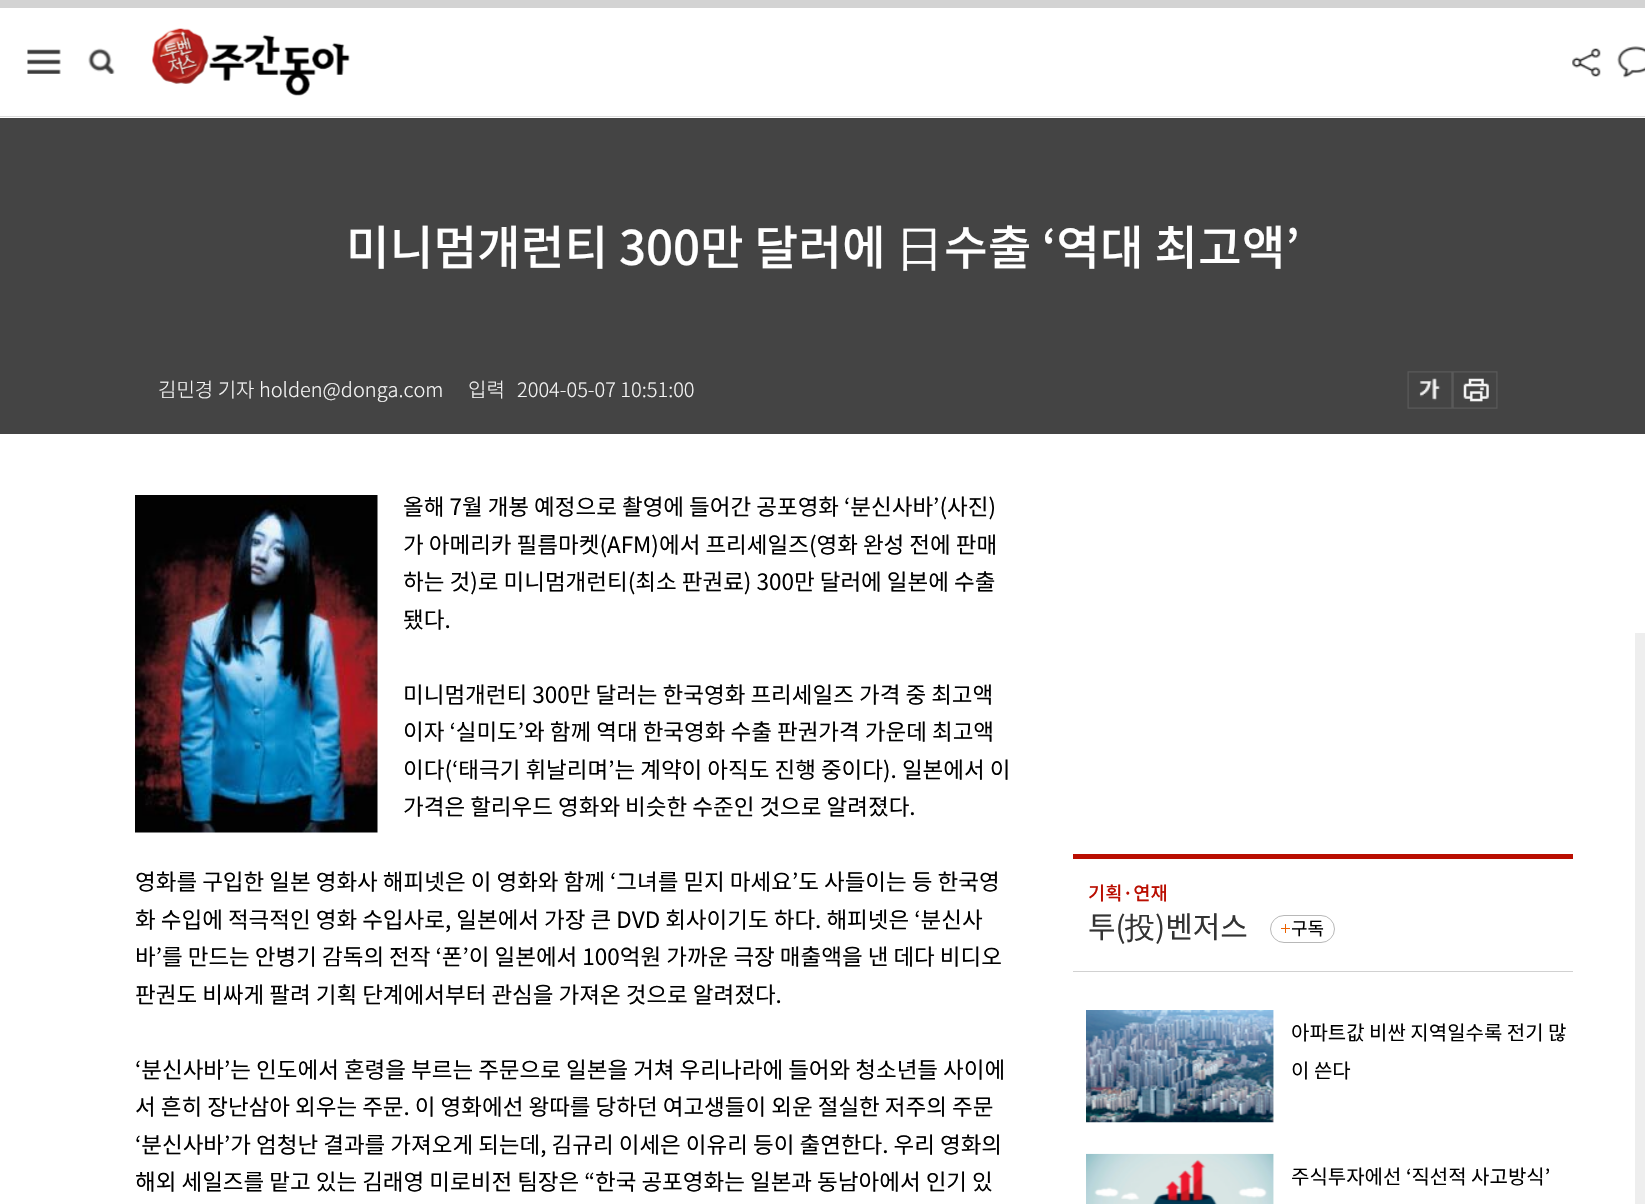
#include "include/core/SkBlurTypes.h"
#include "include/core/SkCanvas.h"
#include "include/core/SkData.h"
#include "include/core/SkFont.h"
#include "include/core/SkFontMgr.h"
#include "include/core/SkImage.h"
#include "include/core/SkMaskFilter.h"
#include "include/core/SkPaint.h"
#include "include/core/SkPathBuilder.h"
#include "include/core/SkTextBlob.h"
#include "include/effects/SkDashPathEffect.h"
#include "include/effects/SkGradientShader.h"
#include "include/utils/SkParsePath.h"

extern sk_sp<SkFontMgr> fontMgr;

void draw(SkCanvas* canvas) {
    SkPaint p;
    p.setAntiAlias(true);
    auto font = [&](const char* family, int weight, float size, bool italic = false) {
        SkFontStyle style(weight, SkFontStyle::kNormal_Width,
            italic ? SkFontStyle::kItalic_Slant : SkFontStyle::kUpright_Slant);
        SkFont result(fontMgr->matchFamilyStyle(family, style), size);
        result.setSubpixel(true);
        return result;
    };
    auto drawPhoto = [&](const char* path, float l, float t, float r, float b) {
        auto image = SkImages::DeferredFromEncodedData(SkData::MakeFromFileName(path));
        canvas->drawImageRect(image, SkRect::MakeLTRB(l, t, r, b), SkSamplingOptions());
    };
    canvas->clear(0xFFFFFFFF);
    p.setColor(0xFFDDDDDD);
    canvas->drawRect(SkRect::MakeLTRB(0, 116, 1645, 117), p);
    p.setColor(0xFFD3D3D3);
    canvas->drawRect(SkRect::MakeLTRB(0, 0, 1645, 8), p);
    drawPhoto("media/1.png", 27, 49, 61, 74);
    drawPhoto("media/2.png", 88, 48, 115, 74);
    drawPhoto("media/3.png", 152, 28, 350, 96);
    drawPhoto("media/4.png", 1572, 48, 1601, 77);
    drawPhoto("media/5.png", 1617, 46, 1645, 78);
    p.setColor(0xFF444444);
    canvas->drawRect(SkRect::MakeLTRB(0, 118, 1645, 434), p);
    auto font1 = font("Noto Sans KR", 500, 47.5f);
    p.setColor(0xFFFFFFFF);
    canvas->drawString("미니멈개런티 300만 달러에", 346, 265, font1, p);
    auto font2 = font("WenQuanYi Zen Hei", 500, 47.5f);
    canvas->drawString("日", 896, 265, font2, p);
    canvas->drawString("수출 ‘역대 최고액’", 944, 265, font1, p);
    auto font3 = font("Noto Sans KR", 300, 20);
    p.setColor(0xFFF5F5F5);
    {
        const struct { const char* s; float x, y; } items[] = {
            {"김민경 기자 holden@donga.com", 158, 397},
            {"입력", 468, 397},
            {"2004-05-07 10:51:00", 517, 397},
        };
        for (auto [s, x, y] : items) {
            canvas->drawString(s, x, y, font3, p);
        }
    }
    drawPhoto("media/6.png", 1407, 371, 1453, 409);
    drawPhoto("media/7.png", 1452, 371, 1498, 409);
    drawPhoto("media/8.png", 135, 495, 378, 833);
    auto font4 = font("Noto Sans KR", 400, 22.5f);
    p.setColor(0xFF000000);
    {
        const struct { const char* s; float x, y; } items[] = {
            {"올해 7월 개봉 예정으로 촬영에 들어간 공포영화 ‘분신사바’(사진)", 403, 515},
            {"가 아메리카 필름마켓(AFM)에서 프리세일즈(영화 완성 전에 판매", 403, 553},
            {"하는 것)로 미니멈개런티(최소 판권료) 300만 달러에 일본에 수출", 403, 590},
            {"됐다.", 403, 628},
            {"미니멈개런티 300만 달러는 한국영화 프리세일즈 가격 중 최고액", 403, 703},
            {"이자 ‘실미도’와 함께 역대 한국영화 수출 판권가격 가운데 최고액", 403, 740},
            {"이다(‘태극기 휘날리며’는 계약이 아직도 진행 중이다). 일본에서 이", 403, 778},
            {"가격은 할리우드 영화와 비슷한 수준인 것으로 알려졌다.", 403, 815},
            {"영화를 구입한 일본 영화사 해피넷은 이 영화와 함께 ‘그녀를 믿지 마세요’도 사들이는 등 한국영", 135, 890},
            {"화 수입에 적극적인 영화 수입사로, 일본에서 가장 큰 DVD 회사이기도 하다. 해피넷은 ‘분신사", 135, 928},
            {"바’를 만드는 안병기 감독의 전작 ‘폰’이 일본에서 100억원 가까운 극장 매출액을 낸 데다 비디오", 135, 965},
            {"판권도 비싸게 팔려 기획 단계에서부터 관심을 가져온 것으로 알려졌다.", 135, 1003},
            {"‘분신사바’는 인도에서 혼령을 부르는 주문으로 일본을 거쳐 우리나라에 들어와 청소년들 사이에", 135, 1078},
            {"서 흔히 장난삼아 외우는 주문. 이 영화에선 왕따를 당하던 여고생들이 외운 절실한 저주의 주문", 135, 1115},
            {"‘분신사바’가 엄청난 결과를 가져오게 되는데, 김규리 이세은 이유리 등이 출연한다. 우리 영화의", 135, 1153},
            {"해외 세일즈를 맡고 있는 김래영 미로비전 팀장은 “한국 공포영화는 일본과 동남아에서 인기 있", 135, 1190},
        };
        for (auto [s, x, y] : items) {
            canvas->drawString(s, x, y, font4, p);
        }
    }
    p.setColor(0xFFBA0E01);
    canvas->drawRect(SkRect::MakeLTRB(1073, 854, 1573, 859), p);
    p.setColor(0xFFD1D1D1);
    canvas->drawRect(SkRect::MakeLTRB(1073, 971, 1573, 972), p);
    auto font5 = font("Noto Sans KR", 500, 18.75f);
    p.setColor(0xFFBA0E01);
    canvas->drawString("기획·연재", 1088, 900, font5, p);
    auto font6 = font("Noto Sans KR", 400, 30);
    p.setColor(0xFF333333);
    canvas->drawString("투(", 1088, 938, font6, p);
    auto font7 = font("WenQuanYi Zen Hei", 500, 30);
    canvas->drawString("投", 1125, 938, font7, p);
    canvas->drawString(")벤저스", 1155, 938, font6, p);
    p.setStyle(SkPaint::kStroke_Style);
    p.setStrokeWidth(1);
    p.setColor(0xFFB8B8B8);
    canvas->drawRoundRect(SkRect::MakeLTRB(1270.5f, 915.5f, 1334.5f, 942.5f), 13.5f, 13.5f, p);
    p.setStyle(SkPaint::kFill_Style);
    p.setColor(0xFFEB6100);
    canvas->drawRect(SkRect::MakeLTRB(1285, 924, 1286, 933), p);
    auto font8 = font("Noto Sans KR", 400, 18);
    p.setColor(0xFF000000);
    canvas->drawString("구독", 1291, 935, font8, p);
    p.setColor(0xFFEB6100);
    canvas->drawRect(SkRect::MakeLTRB(1281, 928, 1290, 929), p);
    drawPhoto("media/9.png", 1086, 1010, 1274, 1123);
    auto font9 = font("Noto Sans KR", 400, 20);
    p.setColor(0xFF000000);
    canvas->drawString("아파트값 비싼 지역일수록 전기 많", 1291, 1040, font9, p);
    canvas->drawString("이 쓴다", 1291, 1078, font9, p);
    drawPhoto("media/10.png", 1086, 1153, 1274, 1204);
    canvas->drawString("주식투자에선 ‘직선적 사고방식’", 1291, 1184, font9, p);
    p.setColor(0xFFEEEEEE);
    canvas->drawRect(SkRect::MakeLTRB(1635, 633, 1645, 1204), p);
}
